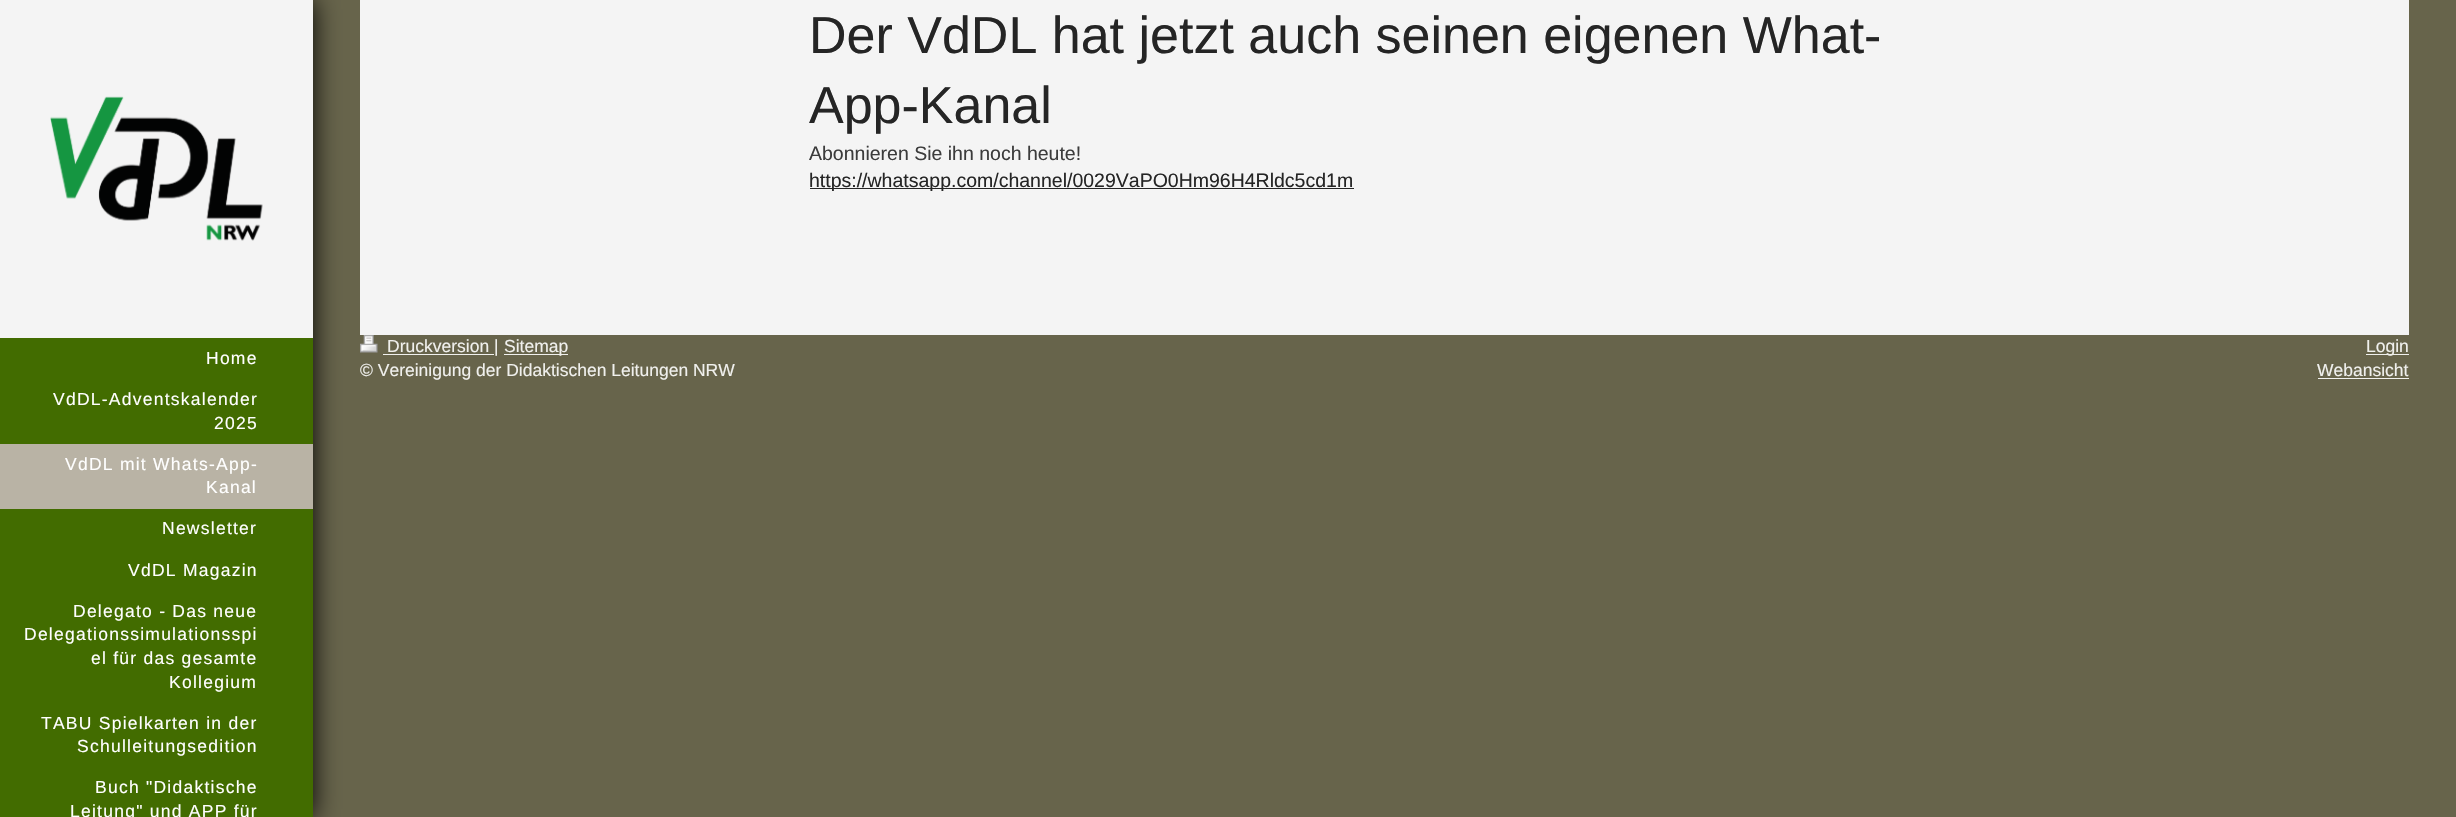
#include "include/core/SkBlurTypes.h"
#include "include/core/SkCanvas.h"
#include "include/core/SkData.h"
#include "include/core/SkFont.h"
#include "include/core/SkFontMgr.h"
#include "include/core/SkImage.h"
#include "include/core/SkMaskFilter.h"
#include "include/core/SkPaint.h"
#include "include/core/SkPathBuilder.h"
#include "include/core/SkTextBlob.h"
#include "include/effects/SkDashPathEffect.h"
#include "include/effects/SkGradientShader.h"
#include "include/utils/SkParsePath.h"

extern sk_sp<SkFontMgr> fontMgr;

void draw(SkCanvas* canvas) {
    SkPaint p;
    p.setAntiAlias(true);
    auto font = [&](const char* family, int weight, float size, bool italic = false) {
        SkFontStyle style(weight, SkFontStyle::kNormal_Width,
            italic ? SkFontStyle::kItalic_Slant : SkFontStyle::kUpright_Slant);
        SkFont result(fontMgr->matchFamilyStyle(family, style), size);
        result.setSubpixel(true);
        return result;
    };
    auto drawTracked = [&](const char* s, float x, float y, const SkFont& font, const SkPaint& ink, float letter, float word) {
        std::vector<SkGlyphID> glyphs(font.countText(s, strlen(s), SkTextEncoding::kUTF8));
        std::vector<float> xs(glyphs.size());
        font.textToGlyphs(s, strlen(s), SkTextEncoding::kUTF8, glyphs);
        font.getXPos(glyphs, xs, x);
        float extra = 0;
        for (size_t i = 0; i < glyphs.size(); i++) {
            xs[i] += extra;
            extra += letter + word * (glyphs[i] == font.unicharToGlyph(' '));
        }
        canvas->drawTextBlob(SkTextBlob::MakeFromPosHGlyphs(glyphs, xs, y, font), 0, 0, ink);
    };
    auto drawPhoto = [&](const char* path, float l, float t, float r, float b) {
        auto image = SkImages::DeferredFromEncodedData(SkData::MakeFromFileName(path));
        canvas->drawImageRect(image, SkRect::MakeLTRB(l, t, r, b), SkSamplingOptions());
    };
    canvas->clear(0xFF67644B);
    p.setColor(0xFF000000);
    p.setMaskFilter(SkMaskFilter::MakeBlur(kNormal_SkBlurStyle, 12.5f));
    canvas->drawRect(SkRect::MakeLTRB(0, 0, 313, 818), p);
    p.setMaskFilter(nullptr);
    p.setColor(0xFFF4F4F4);
    canvas->drawRect(SkRect::MakeLTRB(360, 0, 2409, 335), p);
    auto font1 = font("Liberation Sans", 400, 52);
    p.setColor(0xFF252525);
    canvas->drawString("Der VdDL hat jetzt auch seinen eigenen What-", 809, 53, font1, p);
    canvas->drawString("App-Kanal", 809, 123, font1, p);
    auto font2 = font("Liberation Sans", 400, 19.5f);
    p.setColor(0xFF3C3C3C);
    canvas->drawString("Abonnieren Sie ihn noch heute!", 809, 160, font2, p);
    p.setColor(0xFF252525);
    canvas->drawRect(SkRect::MakeLTRB(810, 188, 1354, 189), p);
    canvas->drawString("https://whatsapp.com/channel/0029VaPO0Hm96H4Rldc5cd1m", 809, 187, font2, p);
    drawPhoto("media/1.png", 360, 335, 378, 353);
    p.setColor(0xFFF0F0ED);
    canvas->drawRect(SkRect::MakeLTRB(383, 354, 494, 355), p);
    auto font3 = font("Liberation Sans", 400, 17.5f);
    canvas->drawString("Druckversion |", 387, 352, font3, p);
    canvas->drawRect(SkRect::MakeLTRB(504, 354, 568, 355), p);
    canvas->drawString("Sitemap", 504, 352, font3, p);
    canvas->drawString("© Vereinigung der Didaktischen Leitungen NRW", 360, 376, font3, p);
    canvas->drawRect(SkRect::MakeLTRB(2366, 354, 2409, 355), p);
    canvas->drawString("Login", 2366, 352, font3, p);
    canvas->drawString("Webansicht", 2317, 376, font3, p);
    canvas->drawRect(SkRect::MakeLTRB(2318, 378, 2409, 379), p);
    p.setColor(0xFFF4F4F4);
    canvas->drawRect(SkRect::MakeLTRB(0, 0, 313, 338), p);
    drawPhoto("media/2.png", 50, 96, 263, 241);
    p.setColor(0xFF426C00);
    canvas->drawRect(SkRect::MakeLTRB(0, 338, 313, 817), p);
    p.setColor(0xFFFFFFFF);
    {
        const struct { const char* s; float x, y; } items[] = {
            {"Home", 206, 364},
            {"VdDL-Adventskalender", 53, 405},
            {"2025", 214, 429},
        };
        for (auto [s, x, y] : items) {
            drawTracked(s, x, y, font3, p, 1.25f, 0);
        }
    }
    p.setColor(0xFFB9B3A5);
    canvas->drawRect(SkRect::MakeLTRB(0, 444, 313, 509), p);
    p.setColor(0xFFFFFFFF);
    {
        const struct { const char* s; float x, y; } items[] = {
            {"VdDL mit Whats-App-", 65, 470},
            {"Kanal", 206, 493},
            {"Newsletter", 162, 534},
            {"VdDL Magazin", 128, 576},
            {"Delegato - Das neue", 73, 617},
            {"Delegationssimulationsspi", 24, 640},
            {"el für das gesamte", 91, 664},
            {"Kollegium", 169, 688},
            {"TABU Spielkarten in der", 41, 729},
            {"Schulleitungsedition", 77, 752},
            {"Buch \"Didaktische", 95, 793},
            {"Leitung\" und APP für", 70, 817},
        };
        for (auto [s, x, y] : items) {
            drawTracked(s, x, y, font3, p, 1.25f, 0);
        }
    }
}
